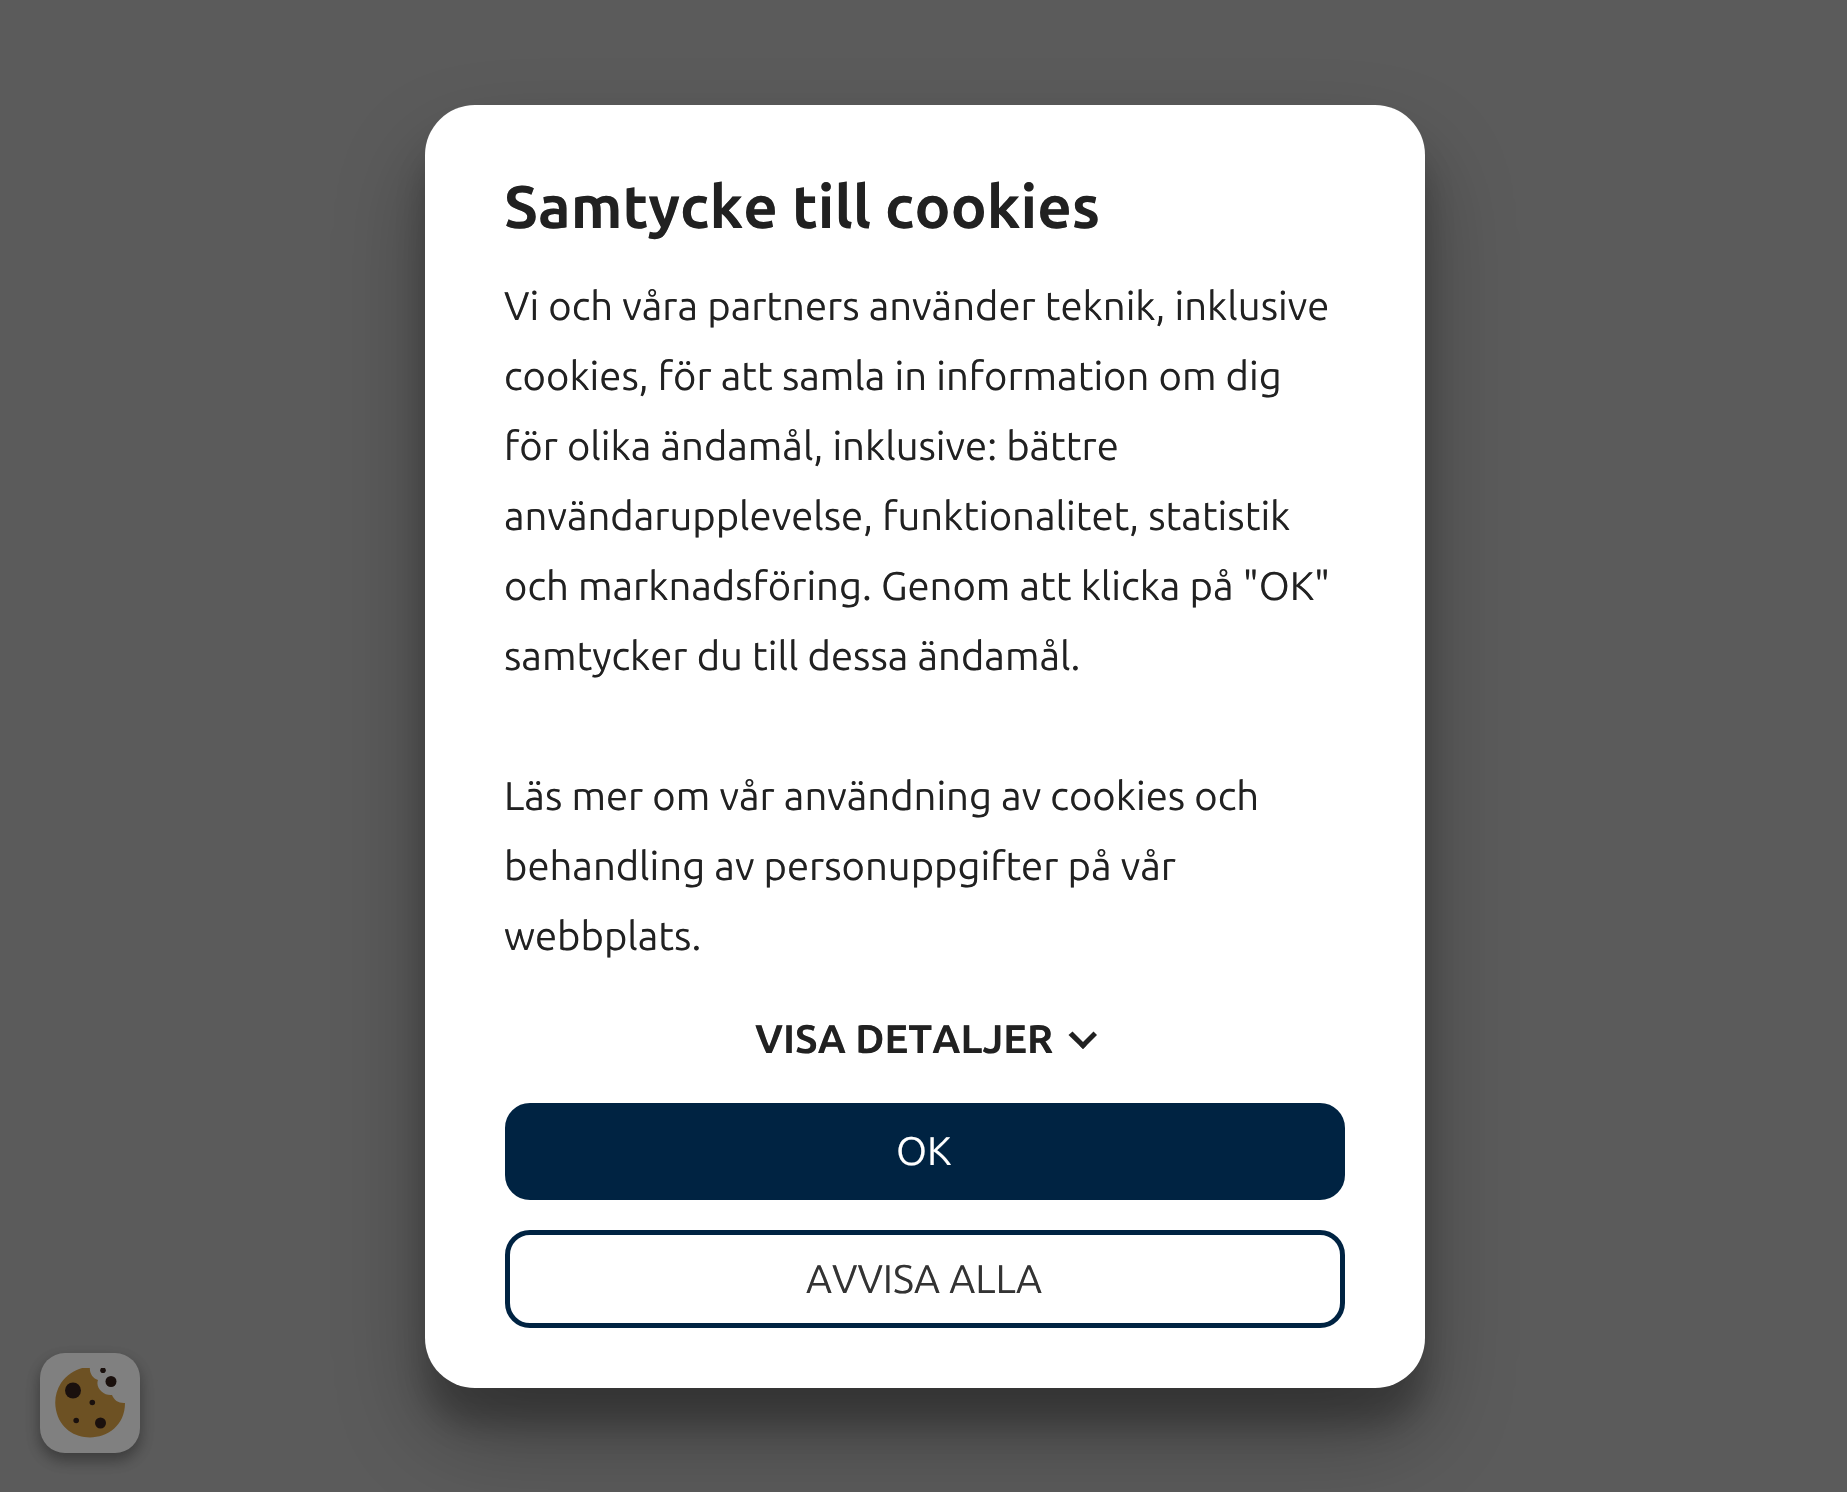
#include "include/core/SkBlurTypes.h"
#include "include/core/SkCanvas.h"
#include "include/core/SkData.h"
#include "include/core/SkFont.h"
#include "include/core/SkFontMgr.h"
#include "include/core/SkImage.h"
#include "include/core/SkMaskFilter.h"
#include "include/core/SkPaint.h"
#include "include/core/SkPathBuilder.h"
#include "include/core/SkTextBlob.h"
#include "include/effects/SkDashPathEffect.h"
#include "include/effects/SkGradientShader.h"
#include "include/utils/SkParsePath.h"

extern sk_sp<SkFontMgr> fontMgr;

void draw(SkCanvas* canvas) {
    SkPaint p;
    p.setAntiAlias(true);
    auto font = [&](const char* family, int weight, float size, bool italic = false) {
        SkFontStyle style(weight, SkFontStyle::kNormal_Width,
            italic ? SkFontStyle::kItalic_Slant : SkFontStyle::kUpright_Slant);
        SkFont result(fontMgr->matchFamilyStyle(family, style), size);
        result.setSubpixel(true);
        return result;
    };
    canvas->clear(0xFF5B5B5B);
    p.setColor(0x38000000);
    p.setMaskFilter(SkMaskFilter::MakeBlur(kNormal_SkBlurStyle, 15));
    canvas->drawRoundRect(SkRect::MakeLTRB(425, 143, 1425, 1425), 50, 50, p);
    p.setMaskFilter(nullptr);
    p.setColor(0x4D000000);
    p.setMaskFilter(SkMaskFilter::MakeBlur(kNormal_SkBlurStyle, 47.5f));
    canvas->drawRoundRect(SkRect::MakeLTRB(425, 153, 1425, 1435), 50, 50, p);
    p.setMaskFilter(nullptr);
    p.setColor(0xFFFFFFFF);
    canvas->drawRoundRect(SkRect::MakeLTRB(425, 105, 1425, 1388), 50, 50, p);
    auto font1 = font("Ubuntu", 700, 60);
    p.setColor(0xFF212121);
    canvas->drawString("Samtycke till cookies", 504, 228, font1, p);
    auto font2 = font("Ubuntu", 400, 40);
    {
        const struct { const char* s; float x, y; } items[] = {
            {"Vi och våra partners använder teknik, inklusive", 504, 320},
            {"cookies, för att samla in information om dig", 504, 390},
            {"för olika ändamål, inklusive: bättre", 504, 460},
            {"användarupplevelse, funktionalitet, statistik", 504, 530},
            {"och marknadsföring. Genom att klicka på \"OK\"", 504, 600},
            {"samtycker du till dessa ändamål.", 504, 670},
            {"Läs mer om vår användning av cookies och", 504, 810},
            {"behandling av personuppgifter på vår", 504, 880},
            {"webbplats.", 504, 950},
        };
        for (auto [s, x, y] : items) {
            canvas->drawString(s, x, y, font2, p);
        }
    }
    auto font3 = font("Ubuntu", 700, 40);
    canvas->drawString("VISA DETALJER", 755, 1053, font3, p);
    canvas->drawPath(SkPathBuilder().moveTo(1093.5f, 1031.5f).lineTo(1097, 1035).lineTo(1083, 1049).lineTo(1079.5f, 1045.5f).close().detach(), p);
    canvas->drawPath(SkPathBuilder().moveTo(1072.5f, 1031.5f).lineTo(1086.5f, 1045.5f).lineTo(1083, 1049).lineTo(1068.5f, 1035).close().detach(), p);
    p.setColor(0xFF002342);
    canvas->drawRoundRect(SkRect::MakeLTRB(507.5f, 1105.5f, 1342.5f, 1197.5f), 22.5f, 22.5f, p);
    p.setStyle(SkPaint::kStroke_Style);
    p.setStrokeWidth(5);
    canvas->drawRoundRect(SkRect::MakeLTRB(507.5f, 1105.5f, 1342.5f, 1197.5f), 22.5f, 22.5f, p);
    p.setStyle(SkPaint::kFill_Style);
    p.setColor(0xFFFFFFFF);
    canvas->drawString("OK", 896, 1165, font2, p);
    p.setStyle(SkPaint::kStroke_Style);
    p.setColor(0xFF002342);
    canvas->drawRoundRect(SkRect::MakeLTRB(507.5f, 1232.5f, 1342.5f, 1325.5f), 22.5f, 22.5f, p);
    p.setStyle(SkPaint::kFill_Style);
    p.setColor(0xFF333333);
    canvas->drawString("AVVISA ALLA", 806, 1293, font2, p);
    p.setColor(0x3B000000);
    p.setMaskFilter(SkMaskFilter::MakeBlur(kNormal_SkBlurStyle, 7.5f));
    canvas->drawRoundRect(SkRect::MakeLTRB(40, 1360, 140, 1460), 25, 25, p);
    p.setMaskFilter(nullptr);
    p.setColor(0x29000000);
    p.setMaskFilter(SkMaskFilter::MakeBlur(kNormal_SkBlurStyle, 7.5f));
    canvas->drawRoundRect(SkRect::MakeLTRB(40, 1360, 140, 1460), 25, 25, p);
    p.setMaskFilter(nullptr);
    p.setColor(0xFF808080);
    canvas->drawRoundRect(SkRect::MakeLTRB(40, 1353, 140, 1453), 25, 25, p);
    canvas->save();
    canvas->clipRect(SkRect::MakeLTRB(55, 1368, 125, 1438));
    p.setColor(0xFF6D5123);
    canvas->drawPath(SkPathBuilder().moveTo(124, 1403).cubicTo(118, 1403, 114, 1400, 112, 1395).cubicTo(104, 1396, 95, 1388, 98, 1380).cubicTo(93, 1379, 89, 1373, 90, 1367).cubicTo(79, 1367, 68, 1373, 61, 1383).cubicTo(56, 1391, 54, 1400, 56, 1410).cubicTo(64, 1450, 125, 1445, 125, 1403).close().detach(), p);
    canvas->restore();
    p.setColor(0xFF1A100D);
    canvas->drawCircle(111, 1381.5f, 5.5f, p);
    canvas->drawCircle(100.5f, 1423, 5.5f, p);
    canvas->drawCircle(73, 1390.5f, 8, p);
    canvas->save();
    canvas->clipRect(SkRect::MakeLTRB(55, 1368, 125, 1438));
    canvas->drawCircle(103, 1370.3f, 2.8f, p);
    canvas->restore();
    canvas->drawCircle(92.3f, 1402.5f, 2.8f, p);
    canvas->drawCircle(76.2f, 1420.5f, 2.8f, p);
}
